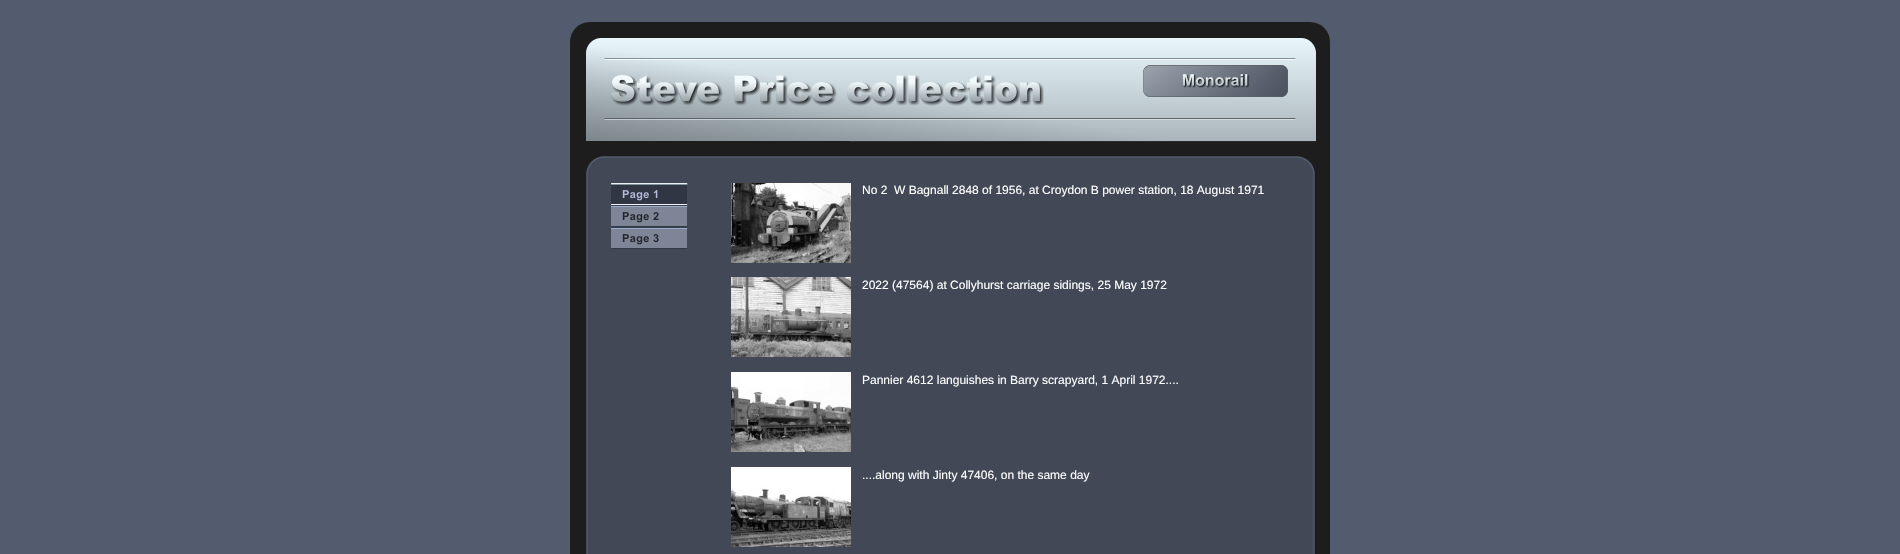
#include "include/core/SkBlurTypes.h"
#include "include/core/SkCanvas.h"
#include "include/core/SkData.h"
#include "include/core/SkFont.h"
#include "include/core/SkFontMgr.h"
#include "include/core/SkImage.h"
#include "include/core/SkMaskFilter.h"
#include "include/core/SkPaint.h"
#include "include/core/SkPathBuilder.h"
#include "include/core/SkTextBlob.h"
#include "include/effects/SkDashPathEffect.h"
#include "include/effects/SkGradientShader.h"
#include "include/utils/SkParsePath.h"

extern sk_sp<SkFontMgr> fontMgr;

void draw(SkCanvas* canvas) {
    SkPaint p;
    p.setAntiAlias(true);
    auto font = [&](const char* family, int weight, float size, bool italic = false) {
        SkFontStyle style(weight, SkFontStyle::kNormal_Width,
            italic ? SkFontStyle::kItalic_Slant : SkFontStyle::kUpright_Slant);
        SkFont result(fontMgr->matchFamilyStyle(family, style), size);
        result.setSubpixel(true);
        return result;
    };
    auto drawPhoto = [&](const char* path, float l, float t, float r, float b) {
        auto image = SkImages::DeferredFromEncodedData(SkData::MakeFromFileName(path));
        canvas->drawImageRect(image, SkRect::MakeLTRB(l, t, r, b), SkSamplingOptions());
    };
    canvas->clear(0xFF535C6F);
    p.setColor(0xFF1D1D1D);
    canvas->drawRoundRect(SkRect::MakeLTRB(570, 22, 1330, 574), 20, 20, p);
    drawPhoto("media/1.png", 586, 38, 1316, 142);
    drawPhoto("media/2.png", 1143, 65, 1288, 97);
    drawPhoto("media/3.png", 611, 75, 1044, 106);
    drawPhoto("media/4.png", 1182, 74, 1250, 88);
    drawPhoto("media/5.png", 586, 156, 1316, 554);
    drawPhoto("media/7.png", 687, 183, 688, 205);
    drawPhoto("media/6.png", 611, 183, 688, 205);
    drawPhoto("media/8.png", 731, 183, 851, 263);
    auto font1 = font("Liberation Sans", 400, 12);
    p.setColor(0xFFFFFFFF);
    canvas->drawString("No 2  W Bagnall 2848 of 1956, at Croydon B power station, 18 August 1971", 862, 194, font1, p);
    drawPhoto("media/9.png", 611, 205, 688, 227);
    drawPhoto("media/10.png", 611, 227, 688, 249);
    drawPhoto("media/11.png", 731, 277, 851, 357);
    canvas->drawString("2022 (47564) at Collyhurst carriage sidings, 25 May 1972", 862, 289, font1, p);
    drawPhoto("media/12.png", 731, 372, 851, 452);
    canvas->drawString("Pannier 4612 languishes in Barry scrapyard, 1 April 1972....", 862, 384, font1, p);
    drawPhoto("media/13.png", 731, 467, 851, 547);
    canvas->drawString("....along with Jinty 47406, on the same day", 862, 479, font1, p);
}
